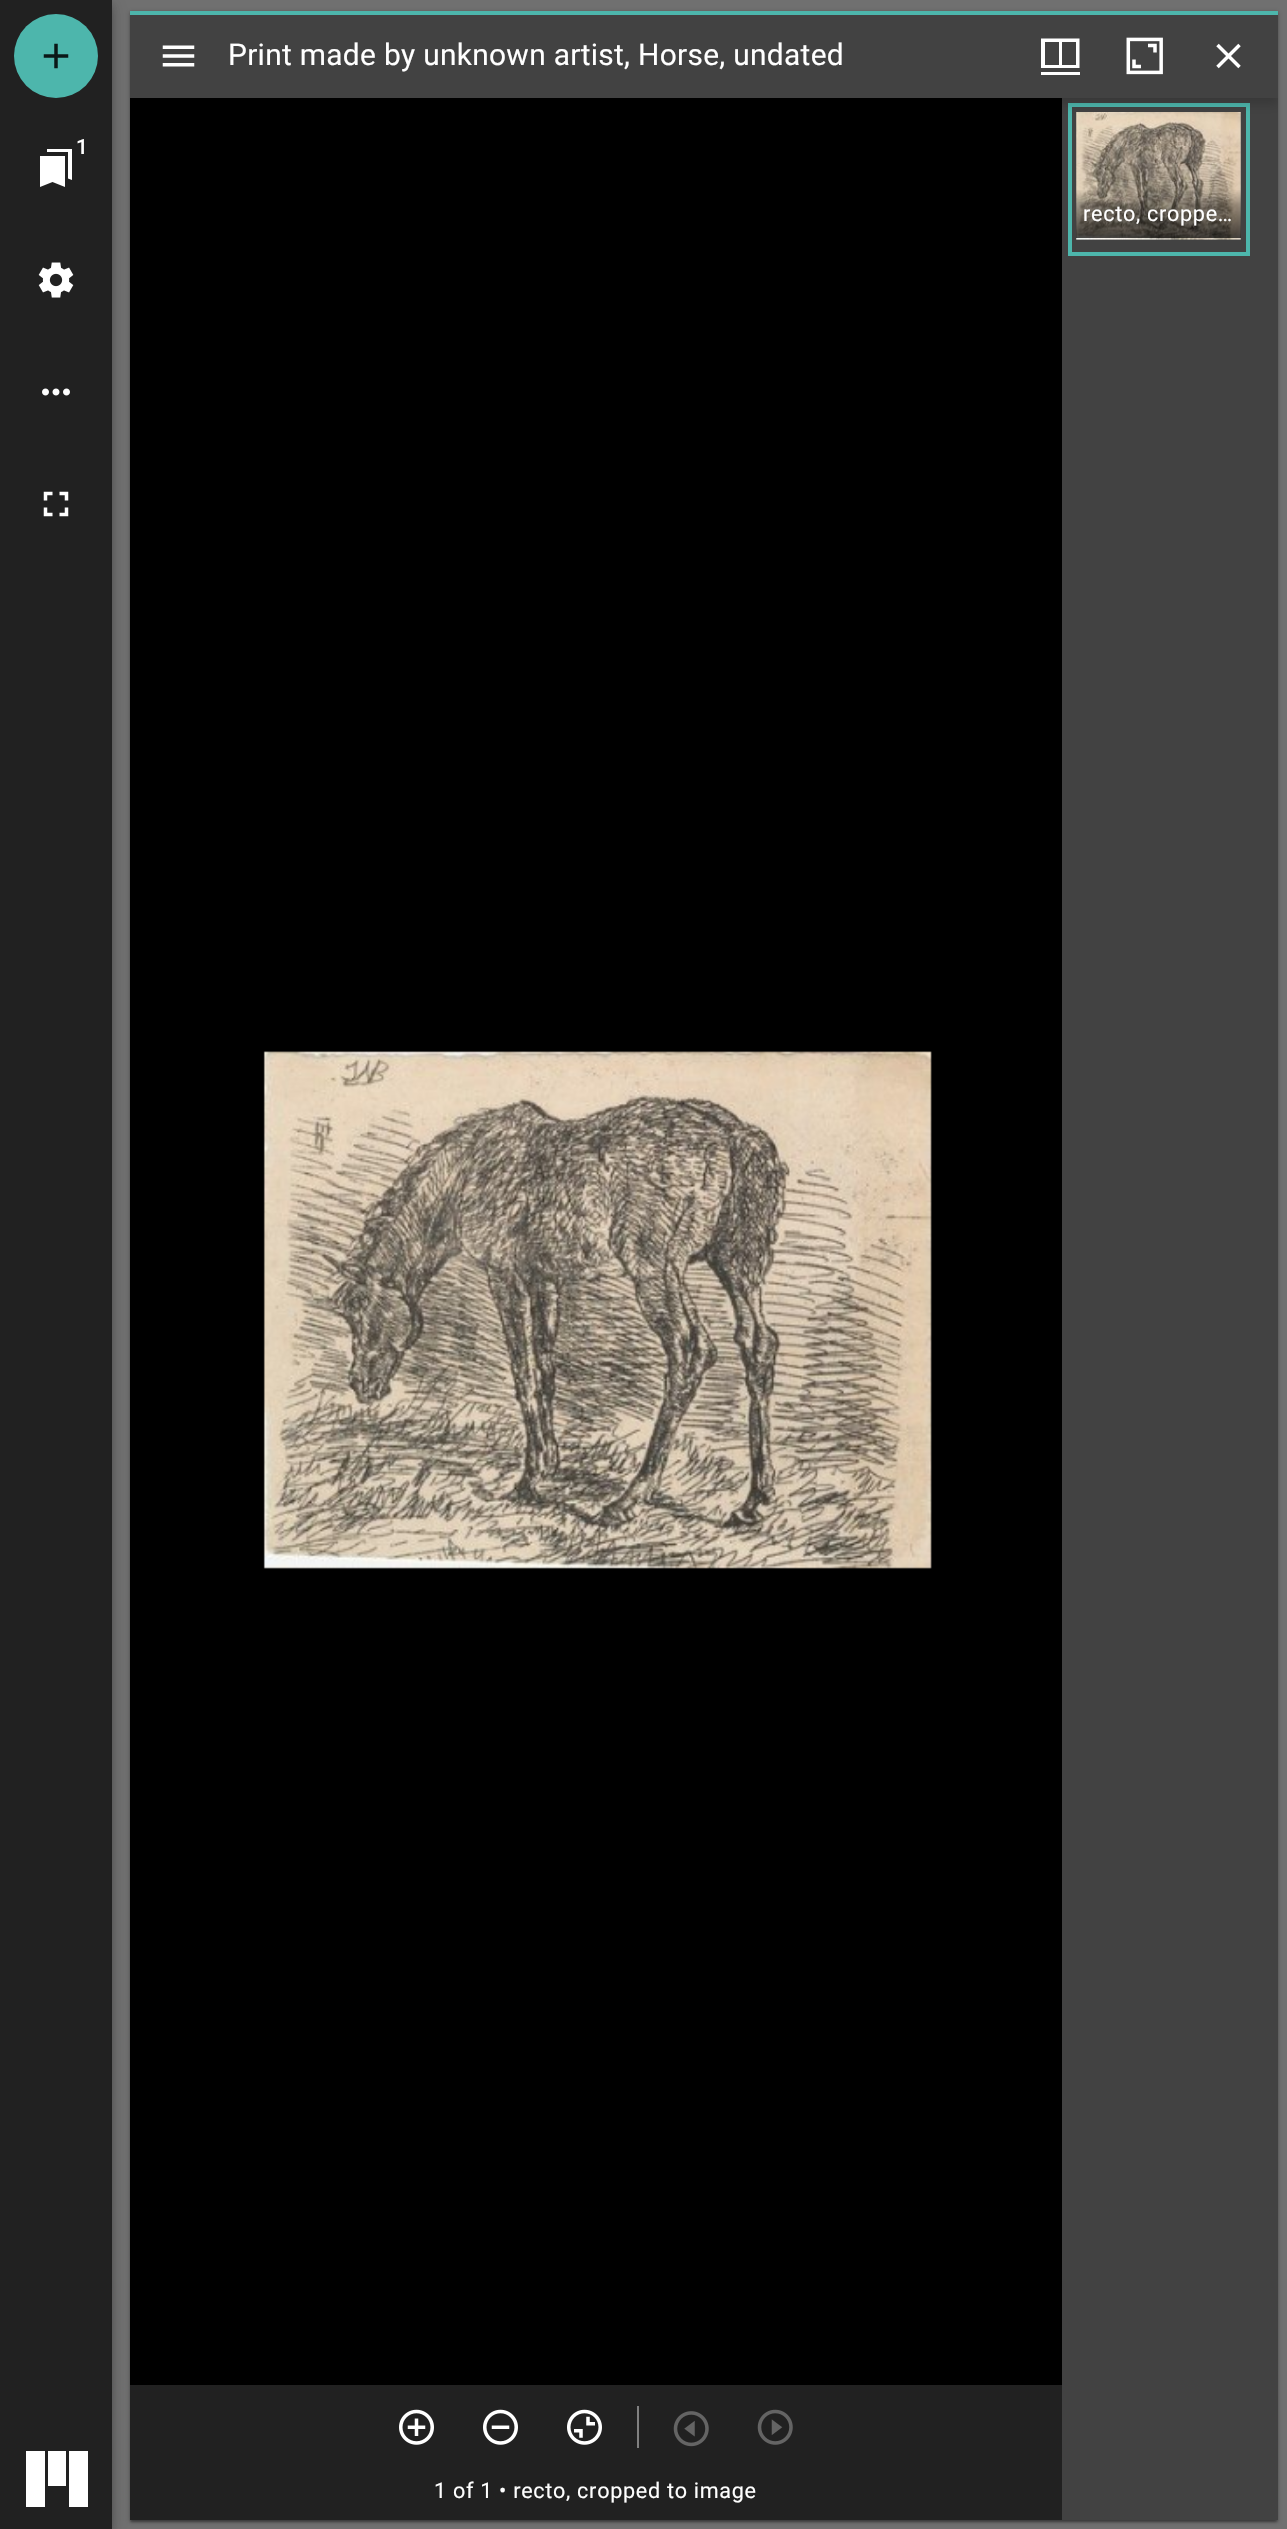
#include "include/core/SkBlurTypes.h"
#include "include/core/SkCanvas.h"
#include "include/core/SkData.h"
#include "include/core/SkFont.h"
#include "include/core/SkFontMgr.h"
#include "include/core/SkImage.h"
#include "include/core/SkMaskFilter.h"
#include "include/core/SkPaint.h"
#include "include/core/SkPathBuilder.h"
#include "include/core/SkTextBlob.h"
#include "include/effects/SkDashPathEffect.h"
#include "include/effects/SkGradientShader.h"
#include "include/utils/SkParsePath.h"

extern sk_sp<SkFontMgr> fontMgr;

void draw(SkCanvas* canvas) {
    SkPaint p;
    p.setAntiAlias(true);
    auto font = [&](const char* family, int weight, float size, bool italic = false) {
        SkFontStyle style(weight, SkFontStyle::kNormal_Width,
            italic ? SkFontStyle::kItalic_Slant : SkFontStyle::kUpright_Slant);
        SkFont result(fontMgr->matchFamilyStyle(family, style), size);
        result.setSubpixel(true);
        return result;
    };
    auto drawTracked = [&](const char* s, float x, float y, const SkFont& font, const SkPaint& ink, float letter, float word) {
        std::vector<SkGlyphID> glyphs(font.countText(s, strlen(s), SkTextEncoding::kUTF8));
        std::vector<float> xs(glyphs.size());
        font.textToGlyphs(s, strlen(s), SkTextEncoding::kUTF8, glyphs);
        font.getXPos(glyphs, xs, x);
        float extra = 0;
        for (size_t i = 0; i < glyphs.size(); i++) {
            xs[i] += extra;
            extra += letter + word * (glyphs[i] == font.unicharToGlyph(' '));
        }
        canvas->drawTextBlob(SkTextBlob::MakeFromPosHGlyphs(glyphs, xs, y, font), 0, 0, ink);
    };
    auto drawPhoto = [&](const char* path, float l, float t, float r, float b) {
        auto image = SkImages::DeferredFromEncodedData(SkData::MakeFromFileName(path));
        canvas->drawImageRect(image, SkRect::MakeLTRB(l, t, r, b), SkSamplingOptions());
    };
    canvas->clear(0xFF707070);
    p.setColor(0x33000000);
    p.setMaskFilter(SkMaskFilter::MakeBlur(kNormal_SkBlurStyle, 1));
    canvas->drawRect(SkRect::MakeLTRB(131, 16, 1276, 2522), p);
    p.setMaskFilter(nullptr);
    p.setMaskFilter(SkMaskFilter::MakeBlur(kNormal_SkBlurStyle, 1));
    canvas->drawRect(SkRect::MakeLTRB(130, 12, 1278, 2522), p);
    p.setMaskFilter(nullptr);
    p.setMaskFilter(SkMaskFilter::MakeBlur(kNormal_SkBlurStyle, 2.5f));
    canvas->drawRect(SkRect::MakeLTRB(130, 12, 1278, 2522), p);
    p.setMaskFilter(nullptr);
    p.setColor(0xFF000000);
    canvas->drawRect(SkRect::MakeLTRB(130, 98, 1062, 2385), p);
    p.setColor(0xFF424242);
    canvas->drawRect(SkRect::MakeLTRB(1062, 98, 1278, 2520), p);
    p.setStyle(SkPaint::kStroke_Style);
    p.setStrokeWidth(4);
    p.setColor(0xFF4DB6AC);
    canvas->drawRect(SkRect::MakeLTRB(1070, 105, 1248, 254), p);
    drawPhoto("media/8.png", 1076, 112, 1241, 240);
    canvas->save();
    canvas->clipRect(SkRect::MakeLTRB(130, 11, 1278, 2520));
    p.setStyle(SkPaint::kFill_Style);
    p.setColor(0x24000000);
    p.setMaskFilter(SkMaskFilter::MakeBlur(kNormal_SkBlurStyle, 4.5f));
    canvas->drawRect(SkRect::MakeLTRB(130, 18, 1278, 105), p);
    p.setMaskFilter(nullptr);
    canvas->restore();
    {
        const struct { float l, t, r, b; SkColor color; } items[] = {
            {130, 15, 1278, 98, 0xFF424242},
            {130, 11, 1278, 15, 0xFF4DB6AC},
            {130, 2385, 1062, 2520, 0xFF212121},
        };
        for (auto [l, t, r, b, color] : items) {
            p.setColor(color);
            canvas->drawRect(SkRect::MakeLTRB(l, t, r, b), p);
        }
    }
    p.setColor(0x1F000000);
    p.setMaskFilter(SkMaskFilter::MakeBlur(kNormal_SkBlurStyle, 9));
    canvas->drawRect(SkRect::MakeLTRB(0, 2, 112, 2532), p);
    p.setMaskFilter(nullptr);
    p.setColor(0x24000000);
    p.setMaskFilter(SkMaskFilter::MakeBlur(kNormal_SkBlurStyle, 4.5f));
    canvas->drawRect(SkRect::MakeLTRB(0, 7, 112, 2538), p);
    p.setMaskFilter(nullptr);
    p.setColor(0x33000000);
    p.setMaskFilter(SkMaskFilter::MakeBlur(kNormal_SkBlurStyle, 3.5f));
    canvas->drawRect(SkRect::MakeLTRB(2, 5, 110, 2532), p);
    p.setMaskFilter(nullptr);
    p.setColor(0xFF212121);
    canvas->drawRect(SkRect::MakeLTRB(0, 0, 112, 2529), p);
    p.setColor(0xFF4DB6AC);
    canvas->drawCircle(56, 56, 42, p);
    drawPhoto("media/1.png", 43, 43, 69, 69);
    auto font1 = font("Roboto", 500, 21);
    p.setColor(0xFFFFFFFF);
    canvas->drawString("1", 76, 154, font1, p);
    canvas->drawPath(SkPathBuilder().moveTo(68, 178.5f).lineTo(72, 180).lineTo(72, 149).lineTo(47, 149).lineTo(47, 152).lineTo(68, 152).close().moveTo(65, 156).lineTo(40, 156).lineTo(40, 187).lineTo(52.5f, 182).lineTo(65, 187).close().detach(), p);
    drawPhoto("media/2.png", 38, 262, 74, 298);
    drawPhoto("media/3.png", 42, 388, 70, 396);
    drawPhoto("media/4.png", 43, 491, 69, 517);
    {
        const struct { float l, t, r, b; SkColor color; } items[] = {
            {26, 2451, 45, 2507, 0xFFFFFFFF},
            {69, 2451, 88, 2507, 0xFFFFFFFF},
            {48, 2451, 66, 2486, 0xFFFFFFFF},
        };
        for (auto [l, t, r, b, color] : items) {
            p.setColor(color);
            canvas->drawRect(SkRect::MakeLTRB(l, t, r, b), p);
        }
    }
    drawPhoto("media/5.png", 162, 45, 195, 67);
    auto font2 = font("Roboto", 400, 29.9f);
    drawTracked("Print made by unknown artist, Horse, undated", 228, 65, font2, p, 0.3f, 0);
    canvas->drawRect(SkRect::MakeLTRB(1041, 72, 1080, 75), p);
    canvas->drawPath(SkPathBuilder().moveTo(1041, 38.5f).lineTo(1041, 68).lineTo(1079.5f, 68).lineTo(1079.5f, 38.5f).close().moveTo(1045, 65).lineTo(1045, 42).lineTo(1059, 42).lineTo(1059, 65).close().moveTo(1076, 65).lineTo(1062, 65).lineTo(1062, 42).lineTo(1076, 42).close().detach(), p);
    drawPhoto("media/6.png", 1126, 37, 1163, 75);
    drawPhoto("media/7.png", 1216, 43, 1241, 69);
    {
        const SkColor colors[] = {0xB3000000, 0x4D000000, 0x00000000};
        const float stops[] = {0, 0.7f, 1};
        const SkPoint ends[] = {{1159, 238}, {1159, 189}};
        p.setShader(SkGradientShader::MakeLinear(ends, colors, stops, 3, SkTileMode::kClamp));
        p.setAlpha(255);
    }
    canvas->drawRect(SkRect::MakeLTRB(1076, 190, 1241, 238), p);
    auto font3 = font("Roboto", 400, 21.6f);
    p.setShader(nullptr);
    p.setColor(0xFFFFFFFF);
    drawTracked("recto, croppe…", 1083, 221, font3, p, 0.7f, 0);
    drawPhoto("media/9.png", 263, 1051, 932, 1569);
    drawPhoto("media/10.png", 399, 2409, 434, 2445);
    drawPhoto("media/11.png", 483, 2409, 518, 2445);
    drawPhoto("media/12.png", 567, 2409, 602, 2445);
    p.setColor(0xFF808080);
    canvas->drawRect(SkRect::MakeLTRB(637, 2406, 639, 2448), p);
    drawPhoto("media/13.png", 673, 2411, 709, 2447);
    drawPhoto("media/14.png", 757, 2409, 793, 2445);
    p.setColor(0xFFFFFFFF);
    drawTracked("1 of 1 • recto, cropped to image", 434, 2498, font3, p, 0.7f, 0);
}
